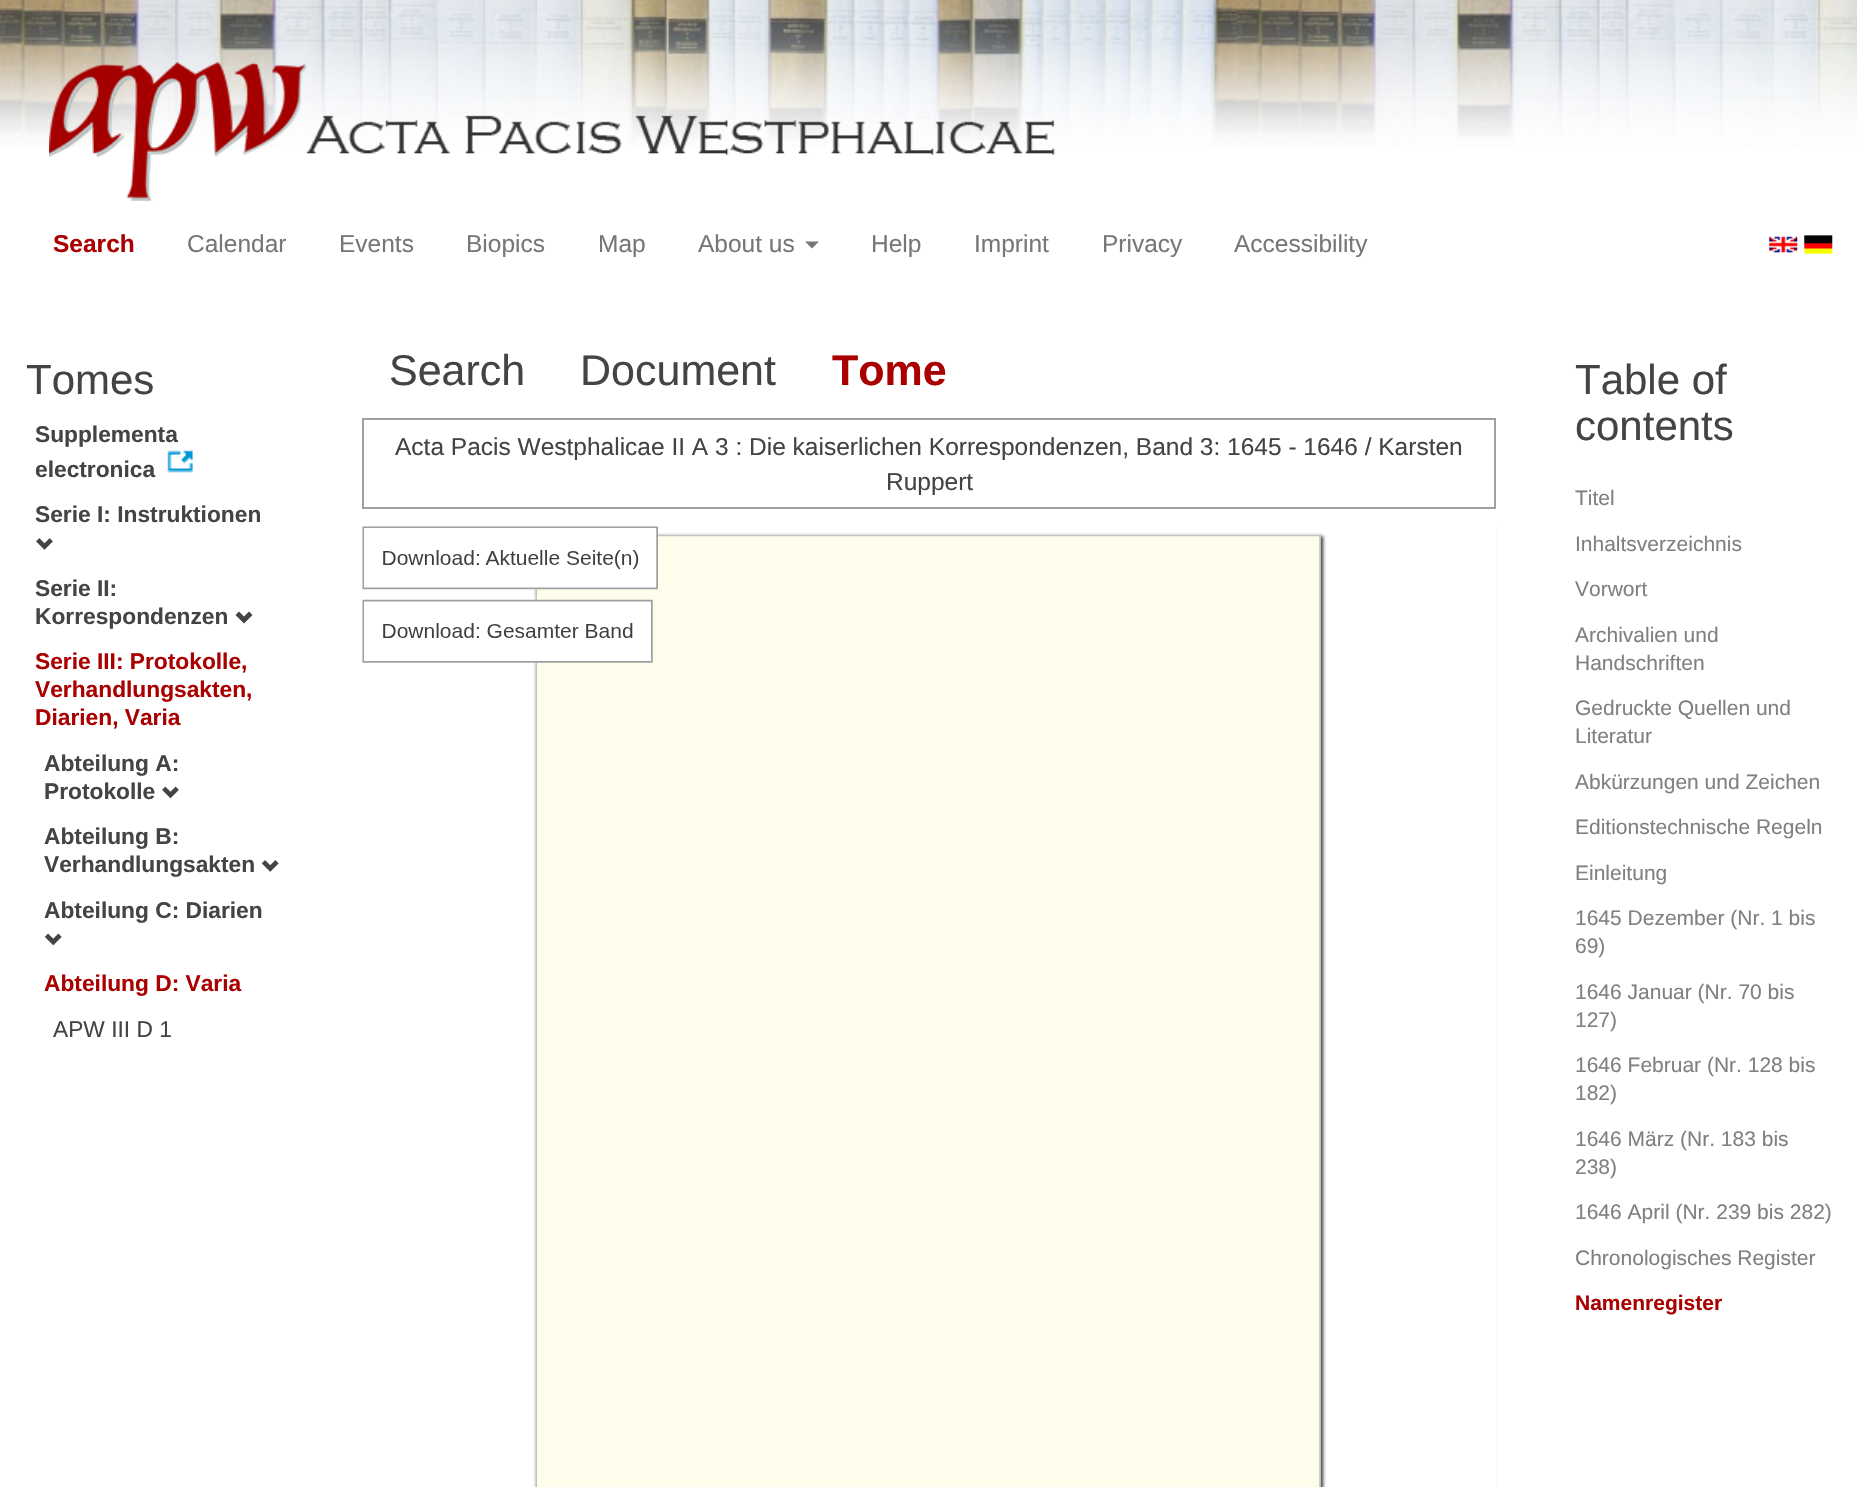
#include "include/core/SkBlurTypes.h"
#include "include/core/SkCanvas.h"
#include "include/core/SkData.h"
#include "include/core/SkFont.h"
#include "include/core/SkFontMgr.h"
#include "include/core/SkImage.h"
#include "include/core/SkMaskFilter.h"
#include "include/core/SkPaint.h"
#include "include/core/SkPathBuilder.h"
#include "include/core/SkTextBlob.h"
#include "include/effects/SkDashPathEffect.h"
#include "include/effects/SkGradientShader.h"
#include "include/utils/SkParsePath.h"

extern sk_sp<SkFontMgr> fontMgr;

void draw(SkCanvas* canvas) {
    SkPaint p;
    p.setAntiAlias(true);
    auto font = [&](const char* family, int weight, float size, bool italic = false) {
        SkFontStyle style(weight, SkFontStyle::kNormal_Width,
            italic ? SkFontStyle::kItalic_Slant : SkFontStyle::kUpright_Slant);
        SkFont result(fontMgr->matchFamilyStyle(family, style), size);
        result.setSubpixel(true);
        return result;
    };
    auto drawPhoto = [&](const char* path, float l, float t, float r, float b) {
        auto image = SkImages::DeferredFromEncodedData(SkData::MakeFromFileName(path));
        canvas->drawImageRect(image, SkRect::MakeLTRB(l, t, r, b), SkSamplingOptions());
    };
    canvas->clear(0xFFFFFFFF);
    drawPhoto("media/1.png", 0, 0, 1857, 148);
    drawPhoto("media/2.png", 49, 62, 1056, 201);
    auto font1 = font("Liberation Sans", 700, 24.5f);
    p.setColor(0xFFAA0000);
    canvas->drawString("Search", 53, 252, font1, p);
    auto font2 = font("Liberation Sans", 400, 24.5f);
    p.setColor(0xFF777777);
    {
        const struct { const char* s; float x, y; } items[] = {
            {"Calendar", 187, 252},
            {"Events", 339, 252},
            {"Biopics", 466, 252},
            {"Map", 598, 252},
            {"About us", 698, 252},
        };
        for (auto [s, x, y] : items) {
            canvas->drawString(s, x, y, font2, p);
        }
    }
    canvas->drawPath(SkPathBuilder().moveTo(805, 241.5f).lineTo(819, 241.5f).lineTo(812, 248.5f).close().detach(), p);
    {
        const struct { const char* s; float x, y; } items[] = {
            {"Help", 871, 252},
            {"Imprint", 974, 252},
            {"Privacy", 1102, 252},
            {"Accessibility", 1234, 252},
        };
        for (auto [s, x, y] : items) {
            canvas->drawString(s, x, y, font2, p);
        }
    }
    drawPhoto("media/3.png", 1769, 236, 1798, 253);
    drawPhoto("media/4.png", 1804, 235, 1833, 254);
    auto font3 = font("Liberation Sans", 400, 42);
    p.setColor(0xFF444444);
    canvas->drawString("Tomes", 26, 394, font3, p);
    auto font4 = font("Liberation Sans", 700, 22.75f);
    canvas->drawString("Supplementa", 35, 442, font4, p);
    canvas->drawString("electronica", 35, 477, font4, p);
    drawPhoto("media/5.png", 167, 450, 193, 473);
    canvas->drawString("Serie I: Instruktionen", 35, 522, font4, p);
    drawPhoto("media/6.png", 36, 538, 53, 550);
    canvas->drawString("Serie II:", 35, 596, font4, p);
    canvas->drawString("Korrespondenzen", 35, 624, font4, p);
    canvas->drawPath(SkPathBuilder().moveTo(235.5f, 615).lineTo(244, 623.5f).lineTo(252.5f, 615).lineTo(249, 611.5f).lineTo(244, 616.5f).lineTo(239, 611.5f).close().detach(), p);
    p.setColor(0xFFAA0000);
    {
        const struct { const char* s; float x, y; } items[] = {
            {"Serie III: Protokolle,", 35, 669},
            {"Verhandlungsakten,", 35, 697},
            {"Diarien, Varia", 35, 725},
        };
        for (auto [s, x, y] : items) {
            canvas->drawString(s, x, y, font4, p);
        }
    }
    p.setColor(0xFF444444);
    canvas->drawString("Abteilung A:", 44, 771, font4, p);
    canvas->drawString("Protokolle", 44, 799, font4, p);
    drawPhoto("media/7.png", 162, 786, 179, 799);
    canvas->drawString("Abteilung B:", 44, 844, font4, p);
    canvas->drawString("Verhandlungsakten", 44, 872, font4, p);
    drawPhoto("media/8.png", 261, 860, 279, 872);
    canvas->drawString("Abteilung C: Diarien", 44, 918, font4, p);
    drawPhoto("media/9.png", 44, 933, 62, 946);
    p.setColor(0xFFAA0000);
    canvas->drawString("Abteilung D: Varia", 44, 991, font4, p);
    auto font5 = font("Liberation Sans", 400, 22.75f);
    p.setColor(0xFF444444);
    canvas->drawString("APW III D 1", 53, 1037, font5, p);
    auto font6 = font("Liberation Sans", 400, 43);
    canvas->drawString("Search", 389, 385, font6, p);
    canvas->drawString("Document", 580, 385, font6, p);
    auto font7 = font("Liberation Sans", 700, 43);
    p.setColor(0xFFAA0000);
    canvas->drawString("Tome", 832, 385, font7, p);
    p.setStyle(SkPaint::kStroke_Style);
    p.setStrokeWidth(2);
    p.setColor(0xFFA0A0A0);
    canvas->drawRect(SkRect::MakeLTRB(363, 419, 1495, 508), p);
    p.setStyle(SkPaint::kFill_Style);
    p.setColor(0xFF444444);
    canvas->drawString("Acta Pacis Westphalicae II A 3 : Die kaiserlichen Korrespondenzen, Band 3: 1645 - 1646 / Karsten", 395, 455, font2, p);
    canvas->drawString("Ruppert", 886, 490, font2, p);
    drawPhoto("media/10.png", 362, 526, 1497, 1487);
    canvas->drawString("Table of", 1575, 394, font3, p);
    canvas->drawString("contents", 1575, 440, font3, p);
    auto font8 = font("Liberation Sans", 400, 21);
    p.setColor(0xFF808080);
    {
        const struct { const char* s; float x, y; } items[] = {
            {"Titel", 1575, 505},
            {"Inhaltsverzeichnis", 1575, 551},
            {"Vorwort", 1575, 596},
            {"Archivalien und", 1575, 642},
            {"Handschriften", 1575, 670},
            {"Gedruckte Quellen und", 1575, 715},
            {"Literatur", 1575, 743},
            {"Abkürzungen und Zeichen", 1575, 789},
            {"Editionstechnische Regeln", 1575, 834},
            {"Einleitung", 1575, 880},
            {"1645 Dezember (Nr. 1 bis", 1575, 925},
            {"69)", 1575, 953},
            {"1646 Januar (Nr. 70 bis", 1575, 999},
            {"127)", 1575, 1027},
            {"1646 Februar (Nr. 128 bis", 1575, 1072},
            {"182)", 1575, 1100},
            {"1646 März (Nr. 183 bis", 1575, 1146},
            {"238)", 1575, 1174},
            {"1646 April (Nr. 239 bis 282)", 1575, 1219},
            {"Chronologisches Register", 1575, 1265},
        };
        for (auto [s, x, y] : items) {
            canvas->drawString(s, x, y, font8, p);
        }
    }
    auto font9 = font("Liberation Sans", 700, 21);
    p.setColor(0xFFAA0000);
    canvas->drawString("Namenregister", 1575, 1310, font9, p);
}
